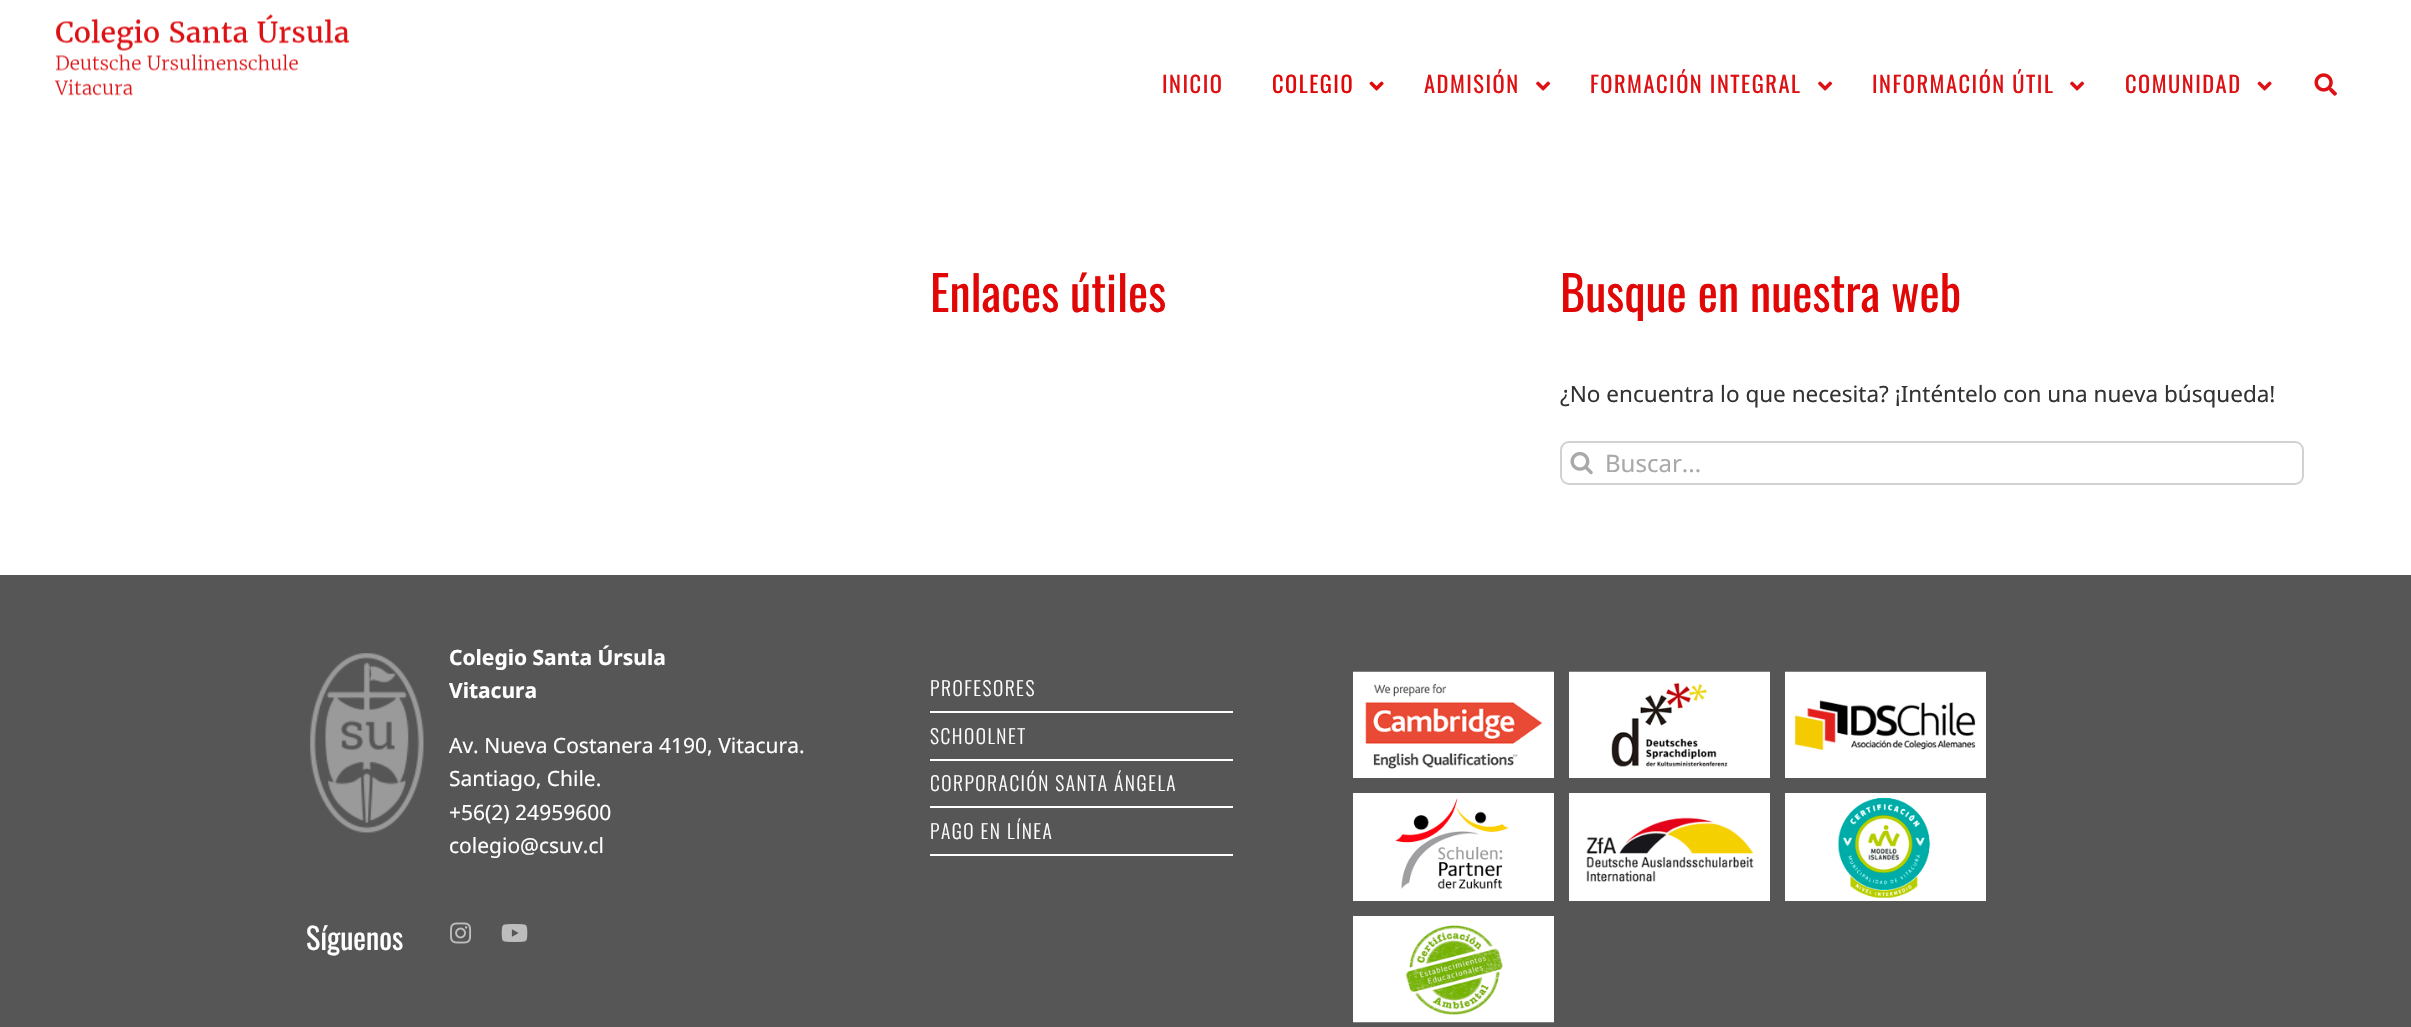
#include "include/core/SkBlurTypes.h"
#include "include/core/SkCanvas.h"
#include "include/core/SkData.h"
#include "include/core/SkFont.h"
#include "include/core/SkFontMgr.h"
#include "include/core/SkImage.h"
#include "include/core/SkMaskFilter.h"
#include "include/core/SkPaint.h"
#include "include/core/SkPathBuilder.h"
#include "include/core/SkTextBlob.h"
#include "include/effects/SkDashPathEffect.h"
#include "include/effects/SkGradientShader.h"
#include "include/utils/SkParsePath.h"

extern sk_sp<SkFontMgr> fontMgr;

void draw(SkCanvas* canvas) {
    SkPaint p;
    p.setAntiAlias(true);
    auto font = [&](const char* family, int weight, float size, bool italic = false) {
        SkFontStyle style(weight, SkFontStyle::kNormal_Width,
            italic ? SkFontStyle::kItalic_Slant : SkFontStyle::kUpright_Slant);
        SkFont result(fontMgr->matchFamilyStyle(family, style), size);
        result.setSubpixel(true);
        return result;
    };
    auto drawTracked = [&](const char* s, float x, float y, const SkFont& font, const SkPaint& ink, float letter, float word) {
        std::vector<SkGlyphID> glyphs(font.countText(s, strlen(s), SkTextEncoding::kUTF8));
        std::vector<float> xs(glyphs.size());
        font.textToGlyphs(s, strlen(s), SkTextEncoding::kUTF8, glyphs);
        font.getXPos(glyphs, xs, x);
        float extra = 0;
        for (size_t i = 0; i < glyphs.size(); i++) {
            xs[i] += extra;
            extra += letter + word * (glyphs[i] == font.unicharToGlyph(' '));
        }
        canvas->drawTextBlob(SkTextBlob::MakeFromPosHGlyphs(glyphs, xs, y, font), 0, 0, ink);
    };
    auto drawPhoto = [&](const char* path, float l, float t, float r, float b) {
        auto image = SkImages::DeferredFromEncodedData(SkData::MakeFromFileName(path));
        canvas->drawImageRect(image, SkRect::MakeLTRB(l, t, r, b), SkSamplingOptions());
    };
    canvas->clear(0xFFFFFFFF);
    drawPhoto("media/1.png", 54, 14, 349, 96);
    auto font1 = font("Oswald", 400, 22.5f);
    p.setColor(0xFFDD1114);
    drawTracked("INICIO", 1162, 93, font1, p, 1.5f, 0);
    p.setColor(0xFFE10707);
    drawTracked("COLEGIO", 1272, 93, font1, p, 1.5f, 0);
    drawPhoto("media/2.png", 1369, 81, 1384, 91);
    p.setColor(0xFFDD1114);
    drawTracked("ADMISIÓN", 1424, 93, font1, p, 1.5f, 0);
    drawPhoto("media/3.png", 1536, 81, 1551, 91);
    drawTracked("FORMACIÓN INTEGRAL", 1590, 93, font1, p, 1.5f, 0);
    drawPhoto("media/3.png", 1818, 81, 1833, 91);
    drawTracked("INFORMACIÓN ÚTIL", 1872, 93, font1, p, 1.5f, 0);
    drawPhoto("media/3.png", 2070, 81, 2085, 91);
    drawTracked("COMUNIDAD", 2125, 93, font1, p, 1.5f, 0);
    drawPhoto("media/4.png", 2257, 81, 2272, 91);
    drawPhoto("media/5.png", 2314, 73, 2337, 96);
    auto font2 = font("Oswald", 400, 48);
    p.setColor(0xFFE10707);
    canvas->drawString("Enlaces útiles", 930, 312, font2, p);
    canvas->drawString("Busque en nuestra web", 1560, 312, font2, p);
    auto font3 = font("Noto Sans", 400, 22.5f);
    p.setColor(0xFF333333);
    canvas->drawString("¿No encuentra lo que necesita? ¡Inténtelo con una nueva búsqueda!", 1560, 402, font3, p);
    p.setStyle(SkPaint::kStroke_Style);
    p.setStrokeWidth(2);
    p.setColor(0xFFD2D2D2);
    canvas->drawRoundRect(SkRect::MakeLTRB(1561, 442, 2303, 484), 8, 8, p);
    drawPhoto("media/6.png", 1570, 452, 1593, 475);
    auto font4 = font("Noto Sans", 400, 24);
    p.setStyle(SkPaint::kFill_Style);
    p.setColor(0xFFAAA9A9);
    canvas->drawString("Buscar...", 1605, 472, font4, p);
    p.setColor(0xFF565656);
    canvas->drawRect(SkRect::MakeLTRB(0, 575, 2411, 1027), p);
    drawPhoto("media/7.png", 310, 653, 424, 833);
    auto font5 = font("Noto Sans", 700, 21);
    p.setColor(0xFFFFFFFF);
    canvas->drawString("Colegio Santa Úrsula", 449, 665, font5, p);
    canvas->drawString("Vitacura", 449, 698, font5, p);
    auto font6 = font("Noto Sans", 400, 21);
    {
        const struct { const char* s; float x, y; } items[] = {
            {"Av. Nueva Costanera 4190, Vitacura.", 449, 753},
            {"Santiago, Chile.", 449, 786},
            {"+56(2) 24959600", 449, 820},
            {"colegio@csuv.cl", 449, 853},
        };
        for (auto [s, x, y] : items) {
            canvas->drawString(s, x, y, font6, p);
        }
    }
    auto font7 = font("Oswald", 400, 30);
    canvas->drawString("Síguenos", 306, 950, font7, p);
    drawPhoto("media/8.png", 450, 922, 472, 944);
    drawPhoto("media/9.png", 501, 924, 528, 942);
    auto font8 = font("Oswald", 300, 19.5f);
    drawTracked("PROFESORES", 930, 696, font8, p, 1.5f, 0);
    canvas->drawRect(SkRect::MakeLTRB(930, 711, 1233, 713), p);
    drawTracked("SCHOOLNET", 930, 744, font8, p, 1.5f, 0);
    canvas->drawRect(SkRect::MakeLTRB(930, 759, 1233, 761), p);
    drawTracked("CORPORACIÓN SANTA ÁNGELA", 930, 791, font8, p, 1.5f, 0);
    canvas->drawRect(SkRect::MakeLTRB(930, 806, 1233, 808), p);
    drawTracked("PAGO EN LÍNEA", 930, 839, font8, p, 1.5f, 0);
    canvas->drawRect(SkRect::MakeLTRB(930, 854, 1233, 856), p);
    drawPhoto("media/10.png", 1353, 671, 1554, 778);
    drawPhoto("media/11.png", 1353, 793, 1554, 901);
    drawPhoto("media/12.png", 1353, 916, 1554, 1023);
    drawPhoto("media/13.png", 1569, 671, 1770, 778);
    drawPhoto("media/14.png", 1569, 793, 1770, 901);
    drawPhoto("media/15.png", 1785, 671, 1986, 778);
    drawPhoto("media/16.png", 1785, 793, 1986, 901);
}
